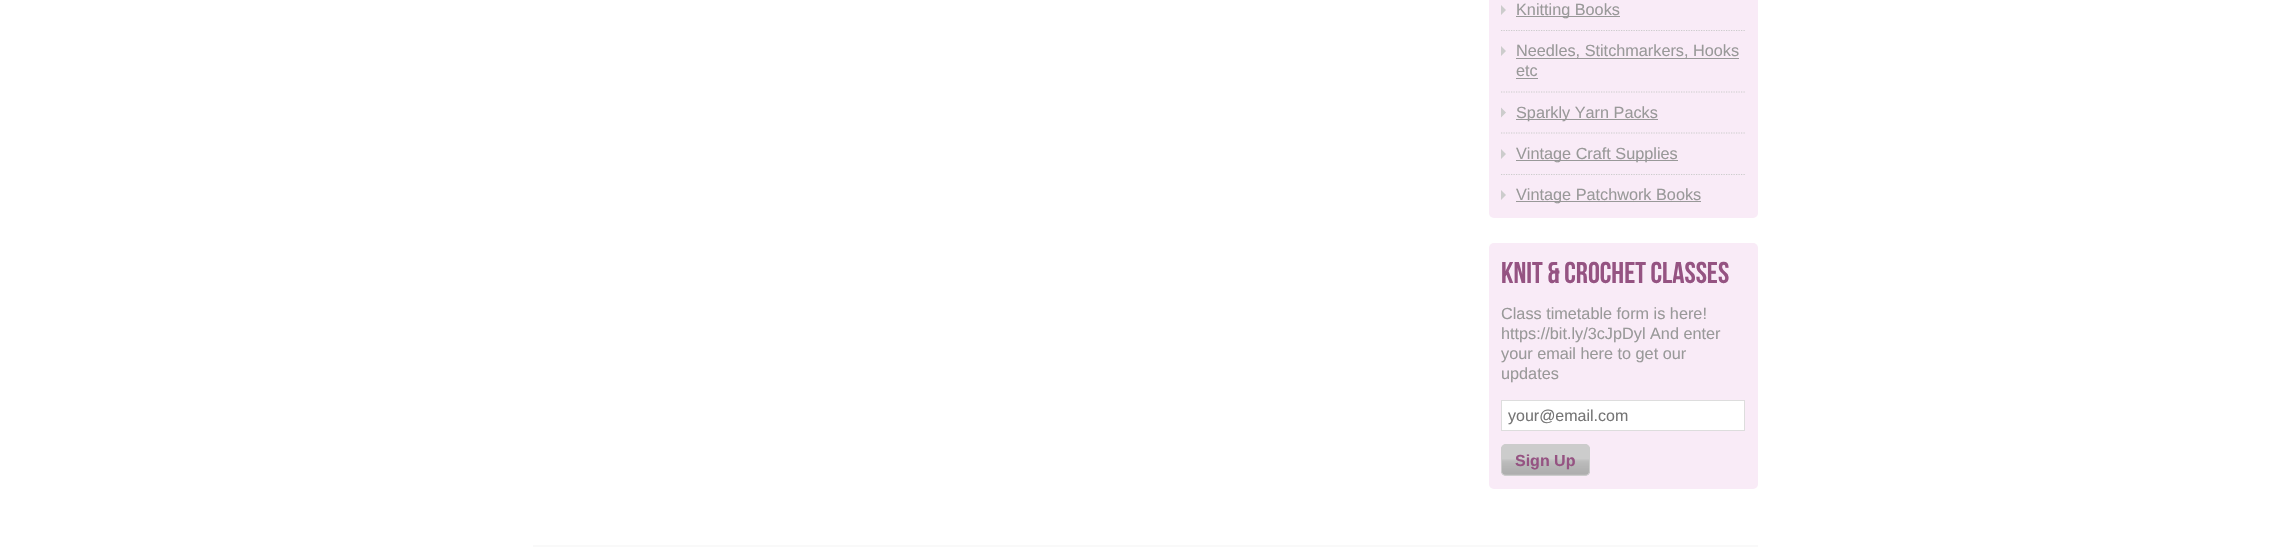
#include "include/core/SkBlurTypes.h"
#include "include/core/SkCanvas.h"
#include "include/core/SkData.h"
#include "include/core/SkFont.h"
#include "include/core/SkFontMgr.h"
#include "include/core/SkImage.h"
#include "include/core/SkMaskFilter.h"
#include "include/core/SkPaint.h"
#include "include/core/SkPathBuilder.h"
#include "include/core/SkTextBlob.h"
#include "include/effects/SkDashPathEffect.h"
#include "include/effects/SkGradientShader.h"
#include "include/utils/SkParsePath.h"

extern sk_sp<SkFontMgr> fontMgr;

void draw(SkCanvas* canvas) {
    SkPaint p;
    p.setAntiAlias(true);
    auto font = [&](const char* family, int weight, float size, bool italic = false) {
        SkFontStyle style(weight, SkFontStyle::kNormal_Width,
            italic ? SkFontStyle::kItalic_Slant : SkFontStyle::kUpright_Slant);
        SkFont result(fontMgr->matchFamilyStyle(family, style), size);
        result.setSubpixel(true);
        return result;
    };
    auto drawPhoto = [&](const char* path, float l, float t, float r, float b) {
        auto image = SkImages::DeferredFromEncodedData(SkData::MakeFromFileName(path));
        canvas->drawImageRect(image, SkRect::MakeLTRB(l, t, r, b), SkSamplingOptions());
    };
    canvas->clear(0xFFFFFFFF);
    p.setColor(0xFFF9EBF7);
    canvas->drawRoundRect(SkRect::MakeLTRB(1489, -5, 1758, 218), 5, 5, p);
    p.setStyle(SkPaint::kStroke_Style);
    p.setStrokeWidth(1.2f);
    p.setColor(0xFFCCCCCC);
    p.setPathEffect(SkDashPathEffect::Make({{1.25f, 1.25f}}, 0));
    canvas->drawPath(SkPathBuilder().moveTo(1501, 30.5f).lineTo(1745, 30.5f).detach(), p);
    p.setPathEffect(nullptr);
    p.setStyle(SkPaint::kFill_Style);
    canvas->drawPath(SkPathBuilder().moveTo(1501, 15).lineTo(1501, 5).lineTo(1506, 10).close().moveTo(1501, 56).lineTo(1501, 46).lineTo(1506, 51).close().detach(), p);
    p.setColor(0xFF999999);
    canvas->drawRect(SkRect::MakeLTRB(1516, 16, 1620, 17), p);
    auto font1 = font("Liberation Sans", 400, 16.25f);
    canvas->drawString("Knitting Books", 1516, 15, font1, p);
    canvas->drawRect(SkRect::MakeLTRB(1516, 58, 1739, 59), p);
    canvas->drawString("Needles, Stitchmarkers, Hooks", 1516, 56, font1, p);
    canvas->drawString("etc", 1516, 76, font1, p);
    canvas->drawRect(SkRect::MakeLTRB(1516, 78, 1538, 79), p);
    p.setStyle(SkPaint::kStroke_Style);
    p.setColor(0xFFCCCCCC);
    p.setPathEffect(SkDashPathEffect::Make({{1.25f, 1.25f}}, 0));
    canvas->drawPath(SkPathBuilder().moveTo(1501, 92).lineTo(1745, 92).detach(), p);
    p.setPathEffect(nullptr);
    p.setPathEffect(SkDashPathEffect::Make({{1.25f, 1.25f}}, 0));
    canvas->drawPath(SkPathBuilder().moveTo(1501, 133).lineTo(1745, 133).detach(), p);
    p.setPathEffect(nullptr);
    p.setStyle(SkPaint::kFill_Style);
    canvas->drawPath(SkPathBuilder().moveTo(1501, 117.5f).lineTo(1501, 107.5f).lineTo(1506, 112.5f).close().moveTo(1501, 159).lineTo(1501, 149).lineTo(1506, 154).close().detach(), p);
    p.setColor(0xFF999999);
    canvas->drawRect(SkRect::MakeLTRB(1516, 119, 1658, 120), p);
    canvas->drawString("Sparkly Yarn Packs", 1516, 118, font1, p);
    canvas->drawRect(SkRect::MakeLTRB(1516, 160, 1678, 161), p);
    canvas->drawString("Vintage Craft Supplies", 1516, 159, font1, p);
    p.setStyle(SkPaint::kStroke_Style);
    p.setColor(0xFFCCCCCC);
    p.setPathEffect(SkDashPathEffect::Make({{1.25f, 1.25f}}, 0));
    canvas->drawPath(SkPathBuilder().moveTo(1501, 174.5f).lineTo(1745, 174.5f).detach(), p);
    p.setPathEffect(nullptr);
    p.setStyle(SkPaint::kFill_Style);
    canvas->drawPath(SkPathBuilder().moveTo(1501, 200).lineTo(1501, 190).lineTo(1506, 195).close().detach(), p);
    p.setColor(0xFF999999);
    canvas->drawRect(SkRect::MakeLTRB(1516, 201, 1701, 202), p);
    canvas->drawString("Vintage Patchwork Books", 1516, 200, font1, p);
    p.setColor(0xFFF9EBF7);
    canvas->drawRoundRect(SkRect::MakeLTRB(1489, 243, 1758, 489), 5, 5, p);
    auto font2 = font("Bebas Neue", 400, 30);
    p.setColor(0xFF955382);
    canvas->drawString("KNIT & CROCHET CLASSES", 1501, 283, font2, p);
    p.setColor(0xFF999999);
    {
        const struct { const char* s; float x, y; } items[] = {
            {"Class timetable form is here!", 1501, 319},
            {"https://bit.ly/3cJpDyl And enter", 1501, 339},
            {"your email here to get our", 1501, 359},
            {"updates", 1501, 379},
        };
        for (auto [s, x, y] : items) {
            canvas->drawString(s, x, y, font1, p);
        }
    }
    p.setColor(0xFFFFFFFF);
    canvas->drawRect(SkRect::MakeLTRB(1501.5f, 400.5f, 1744.5f, 430.5f), p);
    p.setStyle(SkPaint::kStroke_Style);
    p.setStrokeWidth(1);
    p.setColor(0xFFDDDDDD);
    canvas->drawRect(SkRect::MakeLTRB(1501.5f, 400.5f, 1744.5f, 430.5f), p);
    auto font3 = font("Liberation Sans", 400, 16);
    p.setStyle(SkPaint::kFill_Style);
    p.setColor(0xFF757575);
    canvas->drawString("your@email.com", 1508, 421, font3, p);
    p.setColor(0xFFCCCCCC);
    canvas->drawRoundRect(SkRect::MakeLTRB(1501, 444, 1590, 476), 5, 5, p);
    drawPhoto("media/1.png", 1501, 459, 1590, 475);
    p.setStyle(SkPaint::kStroke_Style);
    canvas->drawRoundRect(SkRect::MakeLTRB(1501.5f, 444.5f, 1589.5f, 475.5f), 4.5f, 4.5f, p);
    auto font4 = font("Liberation Sans", 700, 16);
    p.setStyle(SkPaint::kFill_Style);
    p.setColor(0xFF955382);
    canvas->drawString("Sign Up", 1515, 466, font4, p);
    p.setColor(0xFFF9F9F9);
    canvas->drawRect(SkRect::MakeLTRB(533, 545, 1758, 547), p);
}
